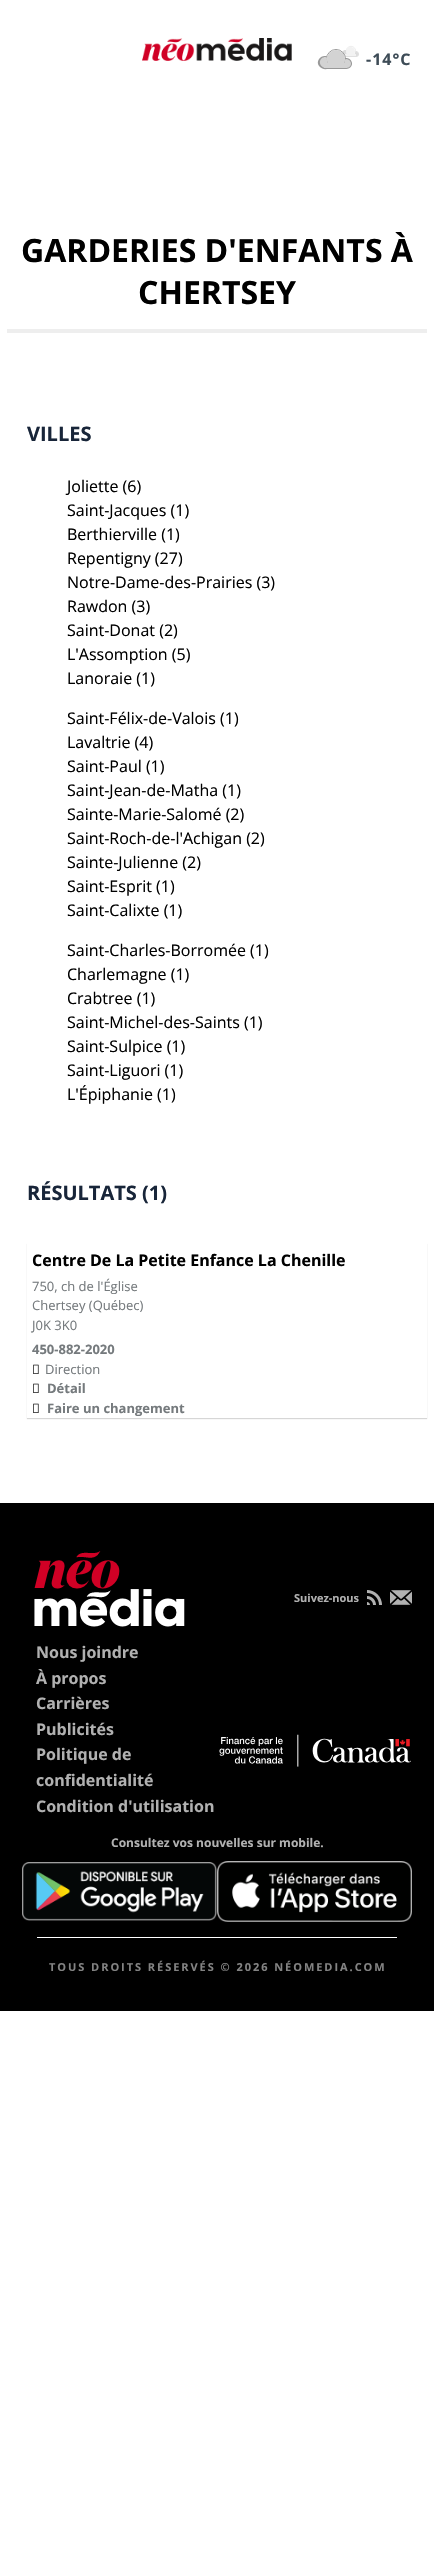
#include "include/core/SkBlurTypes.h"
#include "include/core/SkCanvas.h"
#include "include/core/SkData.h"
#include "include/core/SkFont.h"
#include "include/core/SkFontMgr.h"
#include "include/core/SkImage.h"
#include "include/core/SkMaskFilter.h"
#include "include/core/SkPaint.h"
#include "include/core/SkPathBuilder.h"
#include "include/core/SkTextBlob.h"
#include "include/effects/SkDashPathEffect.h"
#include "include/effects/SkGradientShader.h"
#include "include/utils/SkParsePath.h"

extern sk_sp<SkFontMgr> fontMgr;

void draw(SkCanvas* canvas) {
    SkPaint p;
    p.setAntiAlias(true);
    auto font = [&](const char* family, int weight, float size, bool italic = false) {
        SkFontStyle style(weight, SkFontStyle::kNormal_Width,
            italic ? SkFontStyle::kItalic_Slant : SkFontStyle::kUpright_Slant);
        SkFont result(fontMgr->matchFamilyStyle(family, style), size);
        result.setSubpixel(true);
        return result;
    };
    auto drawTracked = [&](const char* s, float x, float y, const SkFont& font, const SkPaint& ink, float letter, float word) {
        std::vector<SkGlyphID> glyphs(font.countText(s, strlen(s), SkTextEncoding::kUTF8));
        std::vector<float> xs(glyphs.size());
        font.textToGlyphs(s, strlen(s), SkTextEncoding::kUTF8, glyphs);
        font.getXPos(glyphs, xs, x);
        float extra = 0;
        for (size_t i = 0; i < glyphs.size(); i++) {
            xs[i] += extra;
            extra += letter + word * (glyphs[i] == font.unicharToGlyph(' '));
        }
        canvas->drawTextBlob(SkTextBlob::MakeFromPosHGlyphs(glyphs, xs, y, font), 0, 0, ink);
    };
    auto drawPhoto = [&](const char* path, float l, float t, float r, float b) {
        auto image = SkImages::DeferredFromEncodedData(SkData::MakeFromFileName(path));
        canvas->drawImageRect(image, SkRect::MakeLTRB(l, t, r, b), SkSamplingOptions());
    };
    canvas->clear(0xFFFFFFFF);
    drawPhoto("media/1.png", 142, 38, 292, 61);
    p.setColor(0xFFE0E0E0);
    canvas->drawPath(SkPathBuilder().moveTo(356, 51).lineTo(355.5f, 51).cubicTo(355.5f, 52.5f, 354.5f, 54.5f, 353.5f, 55.5f).cubicTo(355, 59, 361, 56, 358.5f, 52.5f).cubicTo(358, 51.5f, 357, 51, 356, 51).close().moveTo(345.5f, 50).cubicTo(344.5f, 50, 343.5f, 50.5f, 343, 51).cubicTo(339.5f, 54.5f, 345.5f, 59.5f, 348.5f, 55.5f).cubicTo(346.5f, 54.5f, 346, 52, 346.5f, 50).close().detach(), p);
    p.setStyle(SkPaint::kStroke_Style);
    p.setStrokeWidth(0.6f);
    canvas->drawRoundRect(SkRect::MakeLTRB(346.3f, 46.3f, 355.7f, 56.7f), 4.7f, 4.7f, p);
    p.setStyle(SkPaint::kFill_Style);
    p.setColor(0x4DD3D3D3);
    canvas->drawPath(SkPathBuilder().moveTo(356, 52).lineTo(355.5f, 52).cubicTo(355, 53, 355, 54, 354, 54.5f).cubicTo(355, 57.5f, 359.5f, 55.5f, 357.5f, 53).cubicTo(357.5f, 52.5f, 356.5f, 52, 356, 52).close().moveTo(345, 50).cubicTo(344, 50, 343.5f, 50.5f, 343, 51).cubicTo(340, 54, 345, 58, 347.5f, 54.5f).cubicTo(346.5f, 53.5f, 346, 52, 346.5f, 50.5f).close().detach(), p);
    p.setColor(0xFFF2F2F2);
    canvas->drawCircle(350.5f, 51.5f, 4.5f, p);
    p.setColor(0xFFE0E0E0);
    canvas->drawRect(SkRect::MakeLTRB(345, 56, 356, 57), p);
    p.setColor(0xFFF2F2F2);
    canvas->drawRect(SkRect::MakeLTRB(345, 54, 356, 56), p);
    p.setColor(0xFF999999);
    canvas->drawPath(SkPathBuilder().moveTo(346.5f, 58).lineTo(345, 58).cubicTo(345, 61, 344, 64, 341.5f, 66).cubicTo(345, 72.5f, 355.5f, 67, 351, 60.5f).cubicTo(350, 59, 348.5f, 58, 346.5f, 58).close().moveTo(324.5f, 56).cubicTo(322.5f, 56, 320.5f, 57, 319, 59).cubicTo(314, 66.5f, 326, 73, 331, 66.5f).cubicTo(327.5f, 64, 326.5f, 60, 327.5f, 56.5f).lineTo(325.5f, 56).close().detach(), p);
    p.setStyle(SkPaint::kStroke_Style);
    p.setStrokeWidth(1);
    canvas->drawCircle(336, 59, 9.5f, p);
    p.setStyle(SkPaint::kFill_Style);
    p.setColor(0xFFD3D3D3);
    canvas->drawPath(SkPathBuilder().moveTo(346.5f, 59).lineTo(345, 59.5f).cubicTo(345, 61.5f, 344, 64, 342.5f, 65.5f).cubicTo(345, 71, 354, 66.5f, 350, 61).cubicTo(349.5f, 60, 348, 59, 346.5f, 59).close().moveTo(325.5f, 57).cubicTo(324, 57, 322.5f, 57.5f, 321.5f, 58.5f).cubicTo(316, 64, 325.5f, 72, 330, 65.5f).cubicTo(327.5f, 63.5f, 326.5f, 60.5f, 327, 57.5f).close().detach(), p);
    canvas->drawCircle(336, 59, 9, p);
    p.setColor(0xFF999999);
    canvas->drawRect(SkRect::MakeLTRB(325, 68, 346, 69), p);
    p.setColor(0xFFD3D3D3);
    canvas->drawRect(SkRect::MakeLTRB(324, 63, 347, 68), p);
    auto font1 = font("Open Sans", 700, 16);
    p.setColor(0xFF3E4C57);
    drawTracked("-14°C", 366, 65, font1, p, 1, 0);
    auto font2 = font("Open Sans", 700, 32);
    p.setColor(0xFF000000);
    canvas->drawString("GARDERIES D'ENFANTS À", 21, 262, font2, p);
    canvas->drawString("CHERTSEY", 138, 304, font2, p);
    p.setColor(0xFFEEEEEE);
    canvas->drawRect(SkRect::MakeLTRB(7, 329, 427, 333), p);
    auto font3 = font("Open Sans", 700, 20);
    p.setColor(0xFF182539);
    canvas->drawString("VILLES", 27, 441, font3, p);
    auto font4 = font("Open Sans", 400, 16);
    p.setColor(0xFF000000);
    {
        const struct { const char* s; float x, y; } items[] = {
            {"Joliette (6)", 67, 492},
            {"Saint-Jacques (1)", 67, 516},
            {"Berthierville (1)", 67, 540},
            {"Repentigny (27)", 67, 564},
            {"Notre-Dame-des-Prairies (3)", 67, 588},
            {"Rawdon (3)", 67, 612},
            {"Saint-Donat (2)", 67, 636},
            {"L'Assomption (5)", 67, 660},
            {"Lanoraie (1)", 67, 684},
            {"Saint-Félix-de-Valois (1)", 67, 724},
            {"Lavaltrie (4)", 67, 748},
            {"Saint-Paul (1)", 67, 772},
            {"Saint-Jean-de-Matha (1)", 67, 796},
            {"Sainte-Marie-Salomé (2)", 67, 820},
            {"Saint-Roch-de-l'Achigan (2)", 67, 844},
            {"Sainte-Julienne (2)", 67, 868},
            {"Saint-Esprit (1)", 67, 892},
            {"Saint-Calixte (1)", 67, 916},
            {"Saint-Charles-Borromée (1)", 67, 956},
            {"Charlemagne (1)", 67, 980},
            {"Crabtree (1)", 67, 1004},
            {"Saint-Michel-des-Saints (1)", 67, 1028},
            {"Saint-Sulpice (1)", 67, 1052},
            {"Saint-Liguori (1)", 67, 1076},
            {"L'Épiphanie (1)", 67, 1100},
        };
        for (auto [s, x, y] : items) {
            canvas->drawString(s, x, y, font4, p);
        }
    }
    p.setColor(0xFF182539);
    canvas->drawString("RÉSULTATS (1)", 27, 1200, font3, p);
    canvas->save();
    canvas->clipPath(SkPathBuilder(SkPathFillType::kEvenOdd).moveTo(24, 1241).lineTo(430, 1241).lineTo(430, 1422).lineTo(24, 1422).close().moveTo(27, 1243).lineTo(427, 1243).lineTo(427, 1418).lineTo(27, 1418).close().detach(), true);
    p.setColor(0x33323232);
    p.setMaskFilter(SkMaskFilter::MakeBlur(kNormal_SkBlurStyle, 0.5f));
    canvas->drawRect(SkRect::MakeLTRB(27, 1244, 427, 1419), p);
    p.setMaskFilter(nullptr);
    canvas->restore();
    p.setColor(0xFF000000);
    canvas->drawString("Centre De La Petite Enfance La Chenille", 32, 1266, font1, p);
    auto font5 = font("Open Sans", 400, 13);
    p.setColor(0xFF757A7D);
    {
        const struct { const char* s; float x, y; } items[] = {
            {"750, ch de l'Église", 32, 1291},
            {"Chertsey (Québec)", 32, 1310},
            {"J0K 3K0", 32, 1330},
        };
        for (auto [s, x, y] : items) {
            canvas->drawString(s, x, y, font5, p);
        }
    }
    auto font6 = font("Open Sans", 700, 13);
    canvas->drawString("450-882-2020", 32, 1354, font6, p);
    drawPhoto("media/2.png", 33, 1364, 39, 1374);
    canvas->drawString("Direction", 45, 1374, font5, p);
    drawPhoto("media/2.png", 33, 1383, 39, 1393);
    canvas->drawString("Détail", 47, 1393, font6, p);
    drawPhoto("media/2.png", 33, 1403, 39, 1413);
    canvas->drawString("Faire un changement", 47, 1413, font6, p);
    p.setColor(0xFF000000);
    canvas->drawRect(SkRect::MakeLTRB(0, 1503, 434, 2011), p);
    auto font7 = font("Open Sans", 700, 11);
    p.setColor(0xFFB1B1B1);
    canvas->drawString("Suivez-nous", 294, 1602, font7, p);
    drawPhoto("media/3.png", 367, 1590, 382, 1605);
    drawPhoto("media/4.png", 390, 1590, 412, 1605);
    drawPhoto("media/5.png", 219, 1734, 411, 1767);
    drawPhoto("media/6.png", 34, 1551, 185, 1627);
    {
        const struct { const char* s; float x, y; } items[] = {
            {"Nous joindre", 36, 1658},
            {"À propos", 36, 1684},
            {"Carrières", 36, 1709},
            {"Publicités", 36, 1735},
            {"Politique de", 36, 1760},
            {"confidentialité", 36, 1786},
            {"Condition d'utilisation", 36, 1812},
        };
        for (auto [s, x, y] : items) {
            canvas->drawString(s, x, y, font1, p);
        }
    }
    auto font8 = font("Open Sans", 700, 12);
    canvas->drawString("Consultez vos nouvelles sur mobile.", 111, 1847, font8, p);
    drawPhoto("media/7.png", 22, 1862, 217, 1921);
    drawPhoto("media/8.png", 217, 1861, 412, 1922);
    p.setColor(0xFFFFFFFF);
    canvas->drawRect(SkRect::MakeLTRB(37, 1937, 397, 1938), p);
    p.setColor(0xFF838383);
    drawTracked("TOUS DROITS RÉSERVÉS © 2026 NÉOMEDIA.COM", 49, 1971, font7, p, 1.95f, 0);
}
